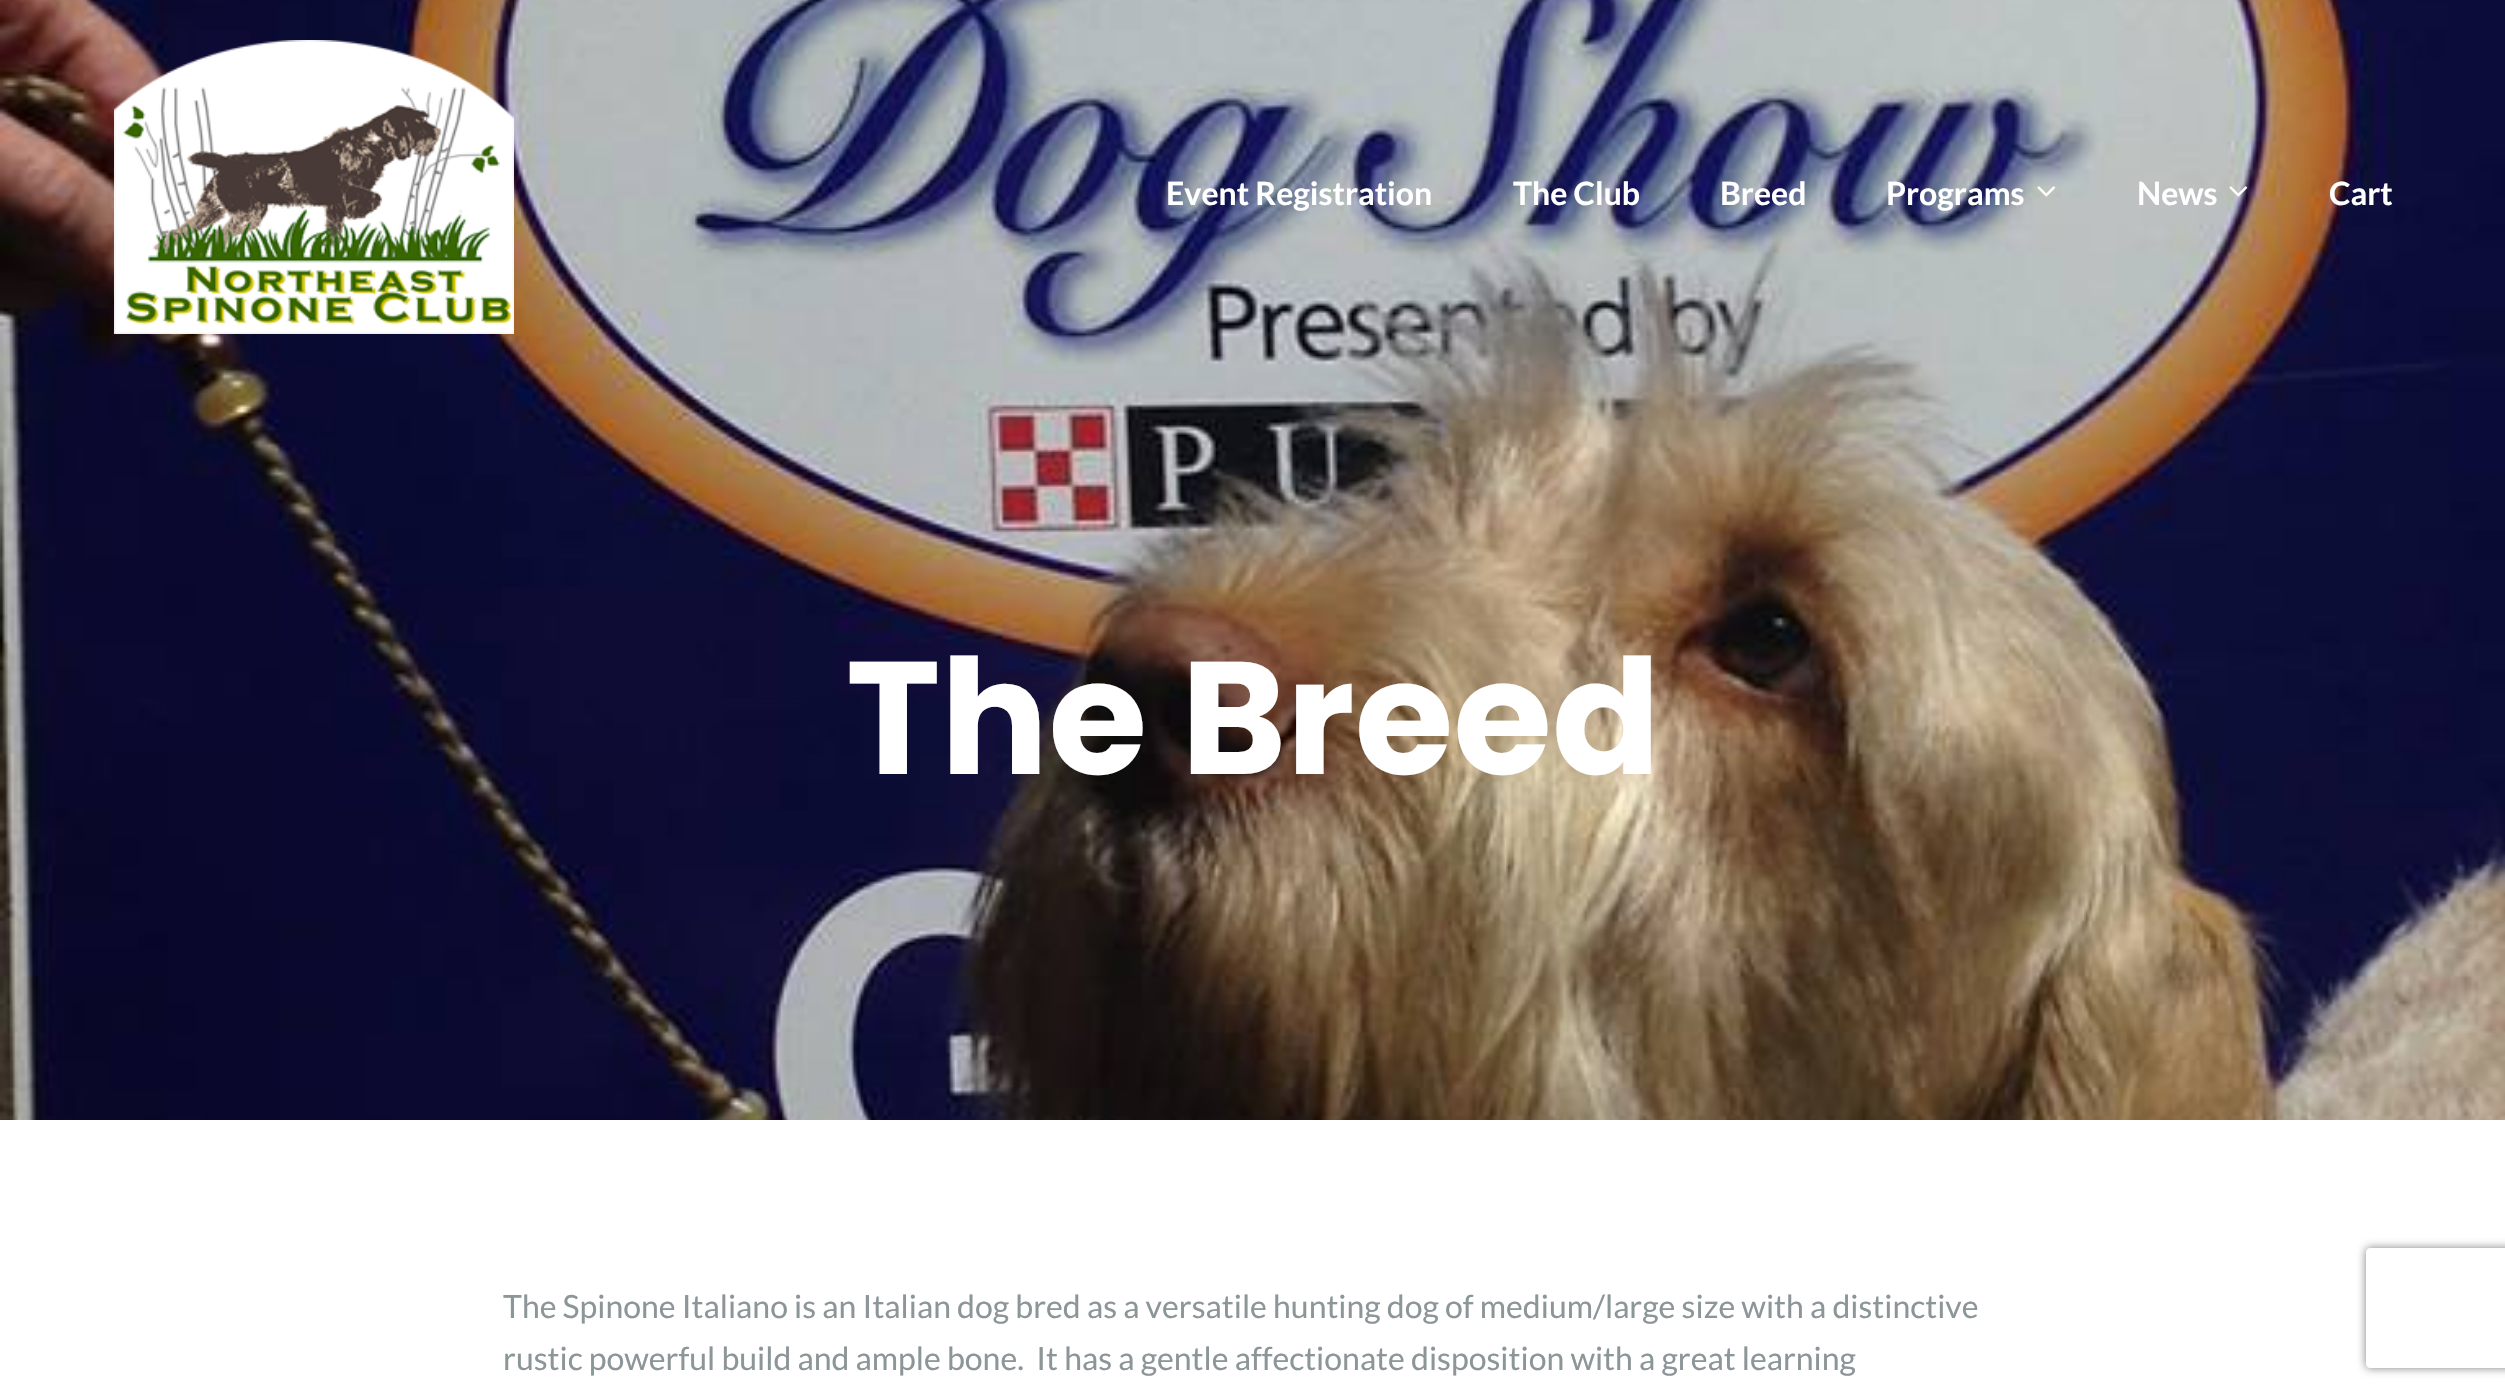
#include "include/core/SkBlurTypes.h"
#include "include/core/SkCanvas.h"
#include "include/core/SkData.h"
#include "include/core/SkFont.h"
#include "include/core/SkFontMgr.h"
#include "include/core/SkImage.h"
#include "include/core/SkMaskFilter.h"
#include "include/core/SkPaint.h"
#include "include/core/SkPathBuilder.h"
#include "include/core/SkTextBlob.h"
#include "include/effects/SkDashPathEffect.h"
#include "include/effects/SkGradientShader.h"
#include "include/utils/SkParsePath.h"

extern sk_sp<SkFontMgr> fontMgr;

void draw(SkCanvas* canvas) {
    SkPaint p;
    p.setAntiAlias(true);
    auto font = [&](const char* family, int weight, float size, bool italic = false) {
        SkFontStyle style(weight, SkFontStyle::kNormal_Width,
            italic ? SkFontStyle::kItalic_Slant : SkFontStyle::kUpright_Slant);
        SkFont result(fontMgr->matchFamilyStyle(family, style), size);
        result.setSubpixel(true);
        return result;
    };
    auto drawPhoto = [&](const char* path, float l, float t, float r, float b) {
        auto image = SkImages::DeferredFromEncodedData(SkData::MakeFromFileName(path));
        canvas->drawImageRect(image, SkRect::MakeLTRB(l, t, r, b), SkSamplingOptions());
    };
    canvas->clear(0xFFFFFFFF);
    drawPhoto("media/1.png", 0, 0, 2505, 1120);
    drawPhoto("media/2.png", 114, 40, 514, 334);
    auto font1 = font("Lato", 700, 32);
    p.setColor(0xFFFFFFFF);
    {
        const struct { const char* s; float x, y; } items[] = {
            {"Event Registration", 1166, 205},
            {"The Club", 1513, 205},
            {"Breed", 1720, 205},
            {"Programs", 1886, 205},
        };
        for (auto [s, x, y] : items) {
            canvas->drawString(s, x, y, font1, p);
        }
    }
    drawPhoto("media/3.png", 2037, 186, 2056, 197);
    canvas->drawString("News", 2137, 205, font1, p);
    drawPhoto("media/4.png", 2229, 186, 2248, 197);
    canvas->drawString("Cart", 2329, 205, font1, p);
    auto font2 = font("Poppins", 700, 160);
    canvas->drawString("The Breed", 846, 774, font2, p);
    auto font3 = font("Lato", 400, 32);
    p.setColor(0xFF8C9597);
    canvas->drawString("The Spinone Italiano is an Italian dog bred as a versatile hunting dog of medium/large size with a distinctive", 503, 1318, font3, p);
    canvas->drawString("rustic powerful build and ample bone.  It has a gentle affectionate disposition with a great learning", 503, 1370, font3, p);
    canvas->save();
    canvas->clipPath(SkPathBuilder(SkPathFillType::kEvenOdd).moveTo(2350, 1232).lineTo(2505, 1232).lineTo(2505, 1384).lineTo(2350, 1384).close().moveTo(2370, 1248).lineTo(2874, 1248).cubicTo(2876, 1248, 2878, 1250, 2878, 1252).lineTo(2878, 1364).cubicTo(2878, 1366, 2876, 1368, 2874, 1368).lineTo(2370, 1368).cubicTo(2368, 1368, 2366, 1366, 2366, 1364).lineTo(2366, 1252).cubicTo(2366, 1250, 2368, 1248, 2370, 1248).close().detach(), true);
    p.setColor(0xFF808080);
    p.setMaskFilter(SkMaskFilter::MakeBlur(kNormal_SkBlurStyle, 5));
    canvas->drawRoundRect(SkRect::MakeLTRB(2366, 1248, 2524, 1368), 4, 4, p);
    p.setMaskFilter(nullptr);
    canvas->restore();
}
